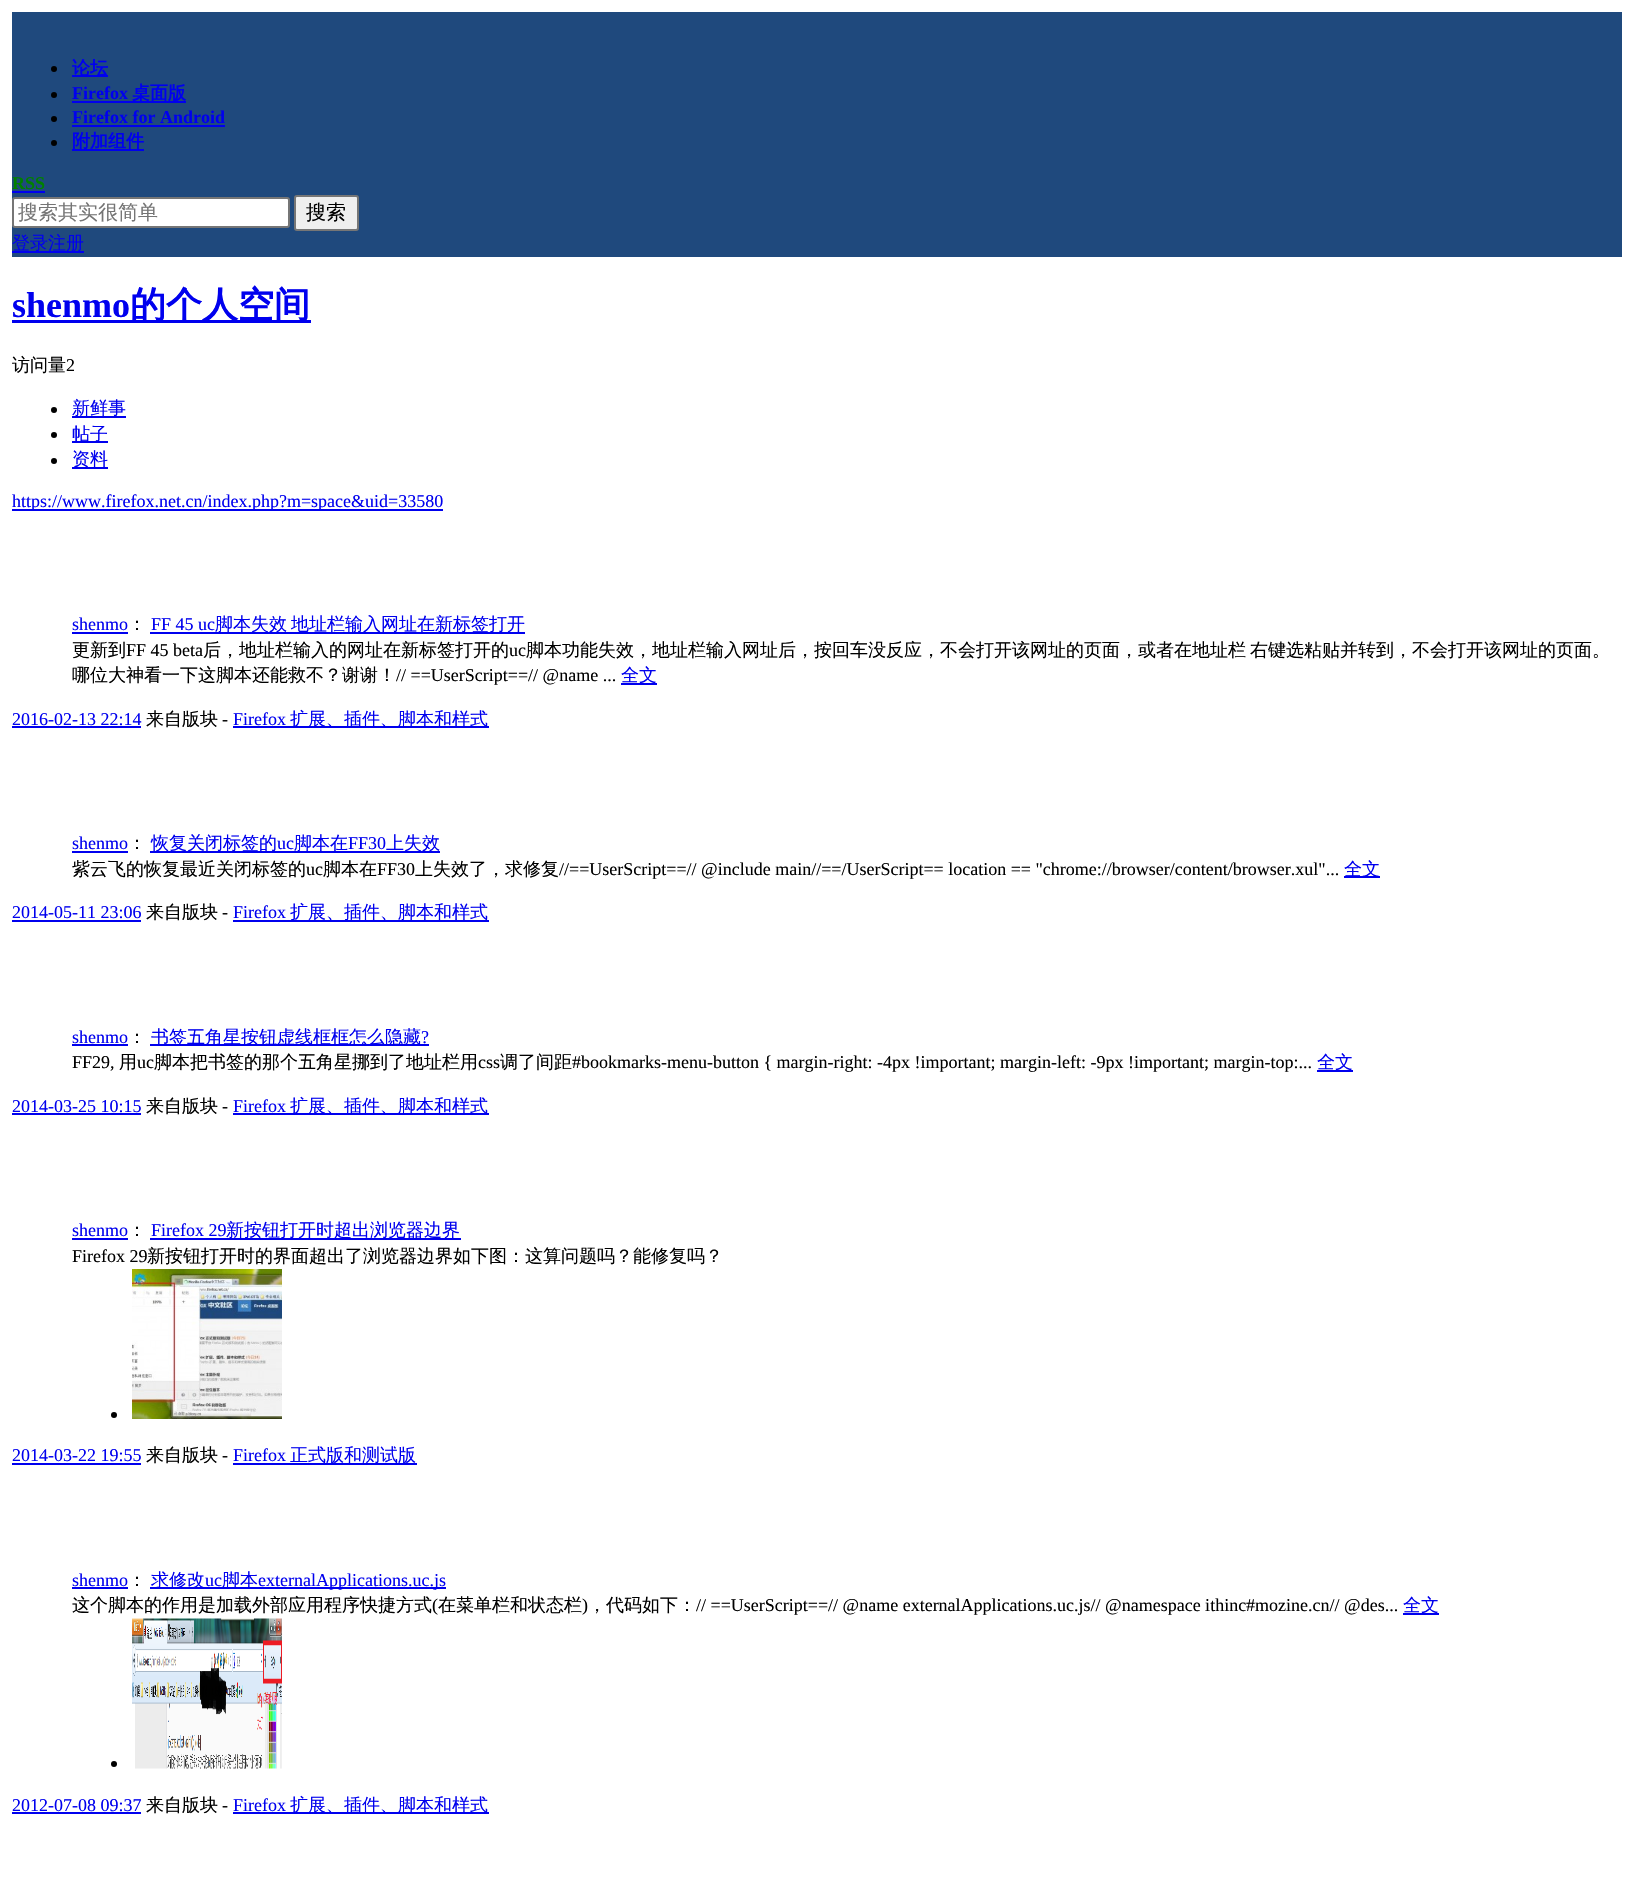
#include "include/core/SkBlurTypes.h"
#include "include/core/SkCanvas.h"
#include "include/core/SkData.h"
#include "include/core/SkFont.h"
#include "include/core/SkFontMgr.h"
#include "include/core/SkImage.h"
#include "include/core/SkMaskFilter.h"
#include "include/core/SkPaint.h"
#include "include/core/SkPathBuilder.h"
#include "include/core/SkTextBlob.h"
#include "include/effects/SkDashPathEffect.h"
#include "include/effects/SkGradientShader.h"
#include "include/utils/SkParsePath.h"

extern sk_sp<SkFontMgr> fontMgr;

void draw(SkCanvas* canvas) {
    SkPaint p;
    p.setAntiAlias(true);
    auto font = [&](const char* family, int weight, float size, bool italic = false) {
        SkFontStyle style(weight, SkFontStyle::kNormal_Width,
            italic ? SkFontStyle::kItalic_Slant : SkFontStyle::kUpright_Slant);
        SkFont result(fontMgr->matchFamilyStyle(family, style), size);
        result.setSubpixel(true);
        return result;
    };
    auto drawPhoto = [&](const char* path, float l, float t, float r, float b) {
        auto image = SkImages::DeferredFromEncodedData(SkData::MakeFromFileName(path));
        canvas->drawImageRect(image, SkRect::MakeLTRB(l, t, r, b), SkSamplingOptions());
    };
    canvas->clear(0xFFFFFFFF);
    p.setColor(0xFF1F497D);
    canvas->drawRect(SkRect::MakeLTRB(12, 12, 1622, 257), p);
    p.setColor(0xFF000000);
    canvas->drawCircle(54, 69, 3, p);
    p.setColor(0xFF0000EE);
    canvas->drawRect(SkRect::MakeLTRB(72, 75, 108, 77), p);
    auto font1 = font("WenQuanYi Zen Hei", 700, 18);
    canvas->drawString("论坛", 72, 74, font1, p);
    p.setColor(0xFF000000);
    canvas->drawCircle(54, 95, 3, p);
    auto font2 = font("Liberation Serif", 700, 18);
    p.setColor(0xFF0000EE);
    canvas->drawString("Firefox", 72, 99, font2, p);
    canvas->drawRect(SkRect::MakeLTRB(72, 101, 186, 103), p);
    canvas->drawString("桌面版", 132, 99, font1, p);
    p.setColor(0xFF000000);
    canvas->drawCircle(54, 119, 3, p);
    p.setColor(0xFF0000EE);
    canvas->drawString("Firefox for Android", 72, 123, font2, p);
    canvas->drawRect(SkRect::MakeLTRB(72, 125, 225, 127), p);
    p.setColor(0xFF000000);
    canvas->drawCircle(54, 143, 3, p);
    p.setColor(0xFF0000EE);
    canvas->drawRect(SkRect::MakeLTRB(72, 149, 144, 151), p);
    canvas->drawString("附加组件", 72, 147, font1, p);
    p.setColor(0xFF008000);
    canvas->drawString("RSS", 12, 189, font2, p);
    p.setColor(0xFF0000EE);
    canvas->drawRect(SkRect::MakeLTRB(12, 191, 45, 193), p);
    p.setColor(0xFFFFFFFF);
    canvas->drawRoundRect(SkRect::MakeLTRB(13, 198, 289, 227), 2, 2, p);
    p.setStyle(SkPaint::kStroke_Style);
    p.setStrokeWidth(2);
    p.setColor(0xFF767676);
    canvas->drawRoundRect(SkRect::MakeLTRB(13, 198, 289, 227), 2, 2, p);
    auto font3 = font("WenQuanYi Zen Hei", 500, 20);
    p.setStyle(SkPaint::kFill_Style);
    p.setColor(0xFF757575);
    canvas->drawString("搜索其实很简单", 18, 219, font3, p);
    p.setColor(0xFFEFEFEF);
    canvas->drawRoundRect(SkRect::MakeLTRB(295, 196, 358, 230), 2, 2, p);
    p.setStyle(SkPaint::kStroke_Style);
    p.setColor(0xFF767676);
    canvas->drawRoundRect(SkRect::MakeLTRB(295, 196, 358, 230), 2, 2, p);
    p.setStyle(SkPaint::kFill_Style);
    p.setColor(0xFF000000);
    canvas->drawString("搜索", 306, 219, font3, p);
    p.setColor(0xFF0000EE);
    canvas->drawRect(SkRect::MakeLTRB(12, 251, 84, 253), p);
    auto font4 = font("WenQuanYi Zen Hei", 500, 18);
    canvas->drawString("登录注册", 12, 249, font4, p);
    auto font5 = font("Liberation Serif", 700, 36);
    canvas->drawString("shenmo", 12, 317, font5, p);
    canvas->drawRect(SkRect::MakeLTRB(12, 320, 311, 323), p);
    auto font6 = font("WenQuanYi Zen Hei", 700, 36);
    canvas->drawString("的个人空间", 130, 317, font6, p);
    p.setColor(0xFF000000);
    canvas->drawString("访问量", 12, 371, font4, p);
    auto font7 = font("Liberation Serif", 400, 18);
    canvas->drawString("2", 66, 371, font7, p);
    canvas->drawCircle(54, 410, 3, p);
    p.setColor(0xFF0000EE);
    canvas->drawRect(SkRect::MakeLTRB(72, 416, 126, 418), p);
    canvas->drawString("新鲜事", 72, 414, font4, p);
    p.setColor(0xFF000000);
    canvas->drawCircle(54, 435, 3, p);
    p.setColor(0xFF0000EE);
    canvas->drawRect(SkRect::MakeLTRB(72, 441, 108, 443), p);
    canvas->drawString("帖子", 72, 440, font4, p);
    p.setColor(0xFF000000);
    canvas->drawCircle(54, 461, 3, p);
    p.setColor(0xFF0000EE);
    canvas->drawRect(SkRect::MakeLTRB(72, 467, 108, 469), p);
    canvas->drawString("资料", 72, 465, font4, p);
    canvas->drawRect(SkRect::MakeLTRB(12, 509, 443, 511), p);
    canvas->drawString("https://www.firefox.net.cn/index.php?m=space&uid=33580", 12, 507, font7, p);
    canvas->drawString("shenmo", 72, 630, font7, p);
    canvas->drawRect(SkRect::MakeLTRB(72, 632, 128, 634), p);
    p.setColor(0xFF000000);
    canvas->drawString("：", 128, 630, font4, p);
    p.setColor(0xFF0000EE);
    canvas->drawString("FF 45 uc", 151, 630, font7, p);
    canvas->drawRect(SkRect::MakeLTRB(150, 632, 525, 634), p);
    canvas->drawString("脚本失效", 215, 630, font4, p);
    canvas->drawString("地址栏输入网址在新标签打开", 291, 630, font4, p);
    p.setColor(0xFF000000);
    canvas->drawString("更新到", 72, 656, font4, p);
    canvas->drawString("FF 45 beta", 126, 656, font7, p);
    canvas->drawString("后，地址栏输入的网址在新标签打开的", 203, 656, font4, p);
    canvas->drawString("uc", 509, 656, font7, p);
    {
        const struct { const char* s; float x, y; } items[] = {
            {"脚本功能失效，地址栏输入网址后，按回车没反应，不会打开该网址的页面，或者在地址栏", 526, 656},
            {"右键选粘贴并转到，不会打开该网址的页面。", 1250, 656},
            {"哪位大神看一下这脚本还能救不？谢谢！", 72, 681},
        };
        for (auto [s, x, y] : items) {
            canvas->drawString(s, x, y, font4, p);
        }
    }
    canvas->drawString("// ==UserScript==// @name ...", 396, 681, font7, p);
    p.setColor(0xFF0000EE);
    canvas->drawRect(SkRect::MakeLTRB(621, 683, 657, 685), p);
    canvas->drawString("全文", 621, 681, font4, p);
    canvas->drawString("2016-02-13 22:14", 12, 725, font7, p);
    canvas->drawRect(SkRect::MakeLTRB(12, 726, 141, 728), p);
    p.setColor(0xFF000000);
    canvas->drawString("来自版块", 146, 725, font4, p);
    canvas->drawString("-", 222, 725, font7, p);
    p.setColor(0xFF0000EE);
    canvas->drawString("Firefox", 233, 725, font7, p);
    canvas->drawRect(SkRect::MakeLTRB(233, 726, 489, 728), p);
    canvas->drawString("扩展、插件、脚本和样式", 290, 725, font4, p);
    canvas->drawString("shenmo", 72, 849, font7, p);
    canvas->drawRect(SkRect::MakeLTRB(72, 851, 128, 853), p);
    p.setColor(0xFF000000);
    canvas->drawString("：", 128, 849, font4, p);
    p.setColor(0xFF0000EE);
    canvas->drawRect(SkRect::MakeLTRB(150, 851, 440, 853), p);
    canvas->drawString("恢复关闭标签的", 151, 849, font4, p);
    canvas->drawString("uc", 277, 849, font7, p);
    canvas->drawString("脚本在", 294, 849, font4, p);
    canvas->drawString("FF30", 348, 849, font7, p);
    canvas->drawString("上失效", 386, 849, font4, p);
    p.setColor(0xFF000000);
    canvas->drawString("紫云飞的恢复最近关闭标签的", 72, 875, font4, p);
    canvas->drawString("uc", 306, 875, font7, p);
    canvas->drawString("脚本在", 323, 875, font4, p);
    canvas->drawString("FF30", 377, 875, font7, p);
    canvas->drawString("上失效了，求修复", 415, 875, font4, p);
    canvas->drawString("//==UserScript==// @include main//==/UserScript== location == \"chrome://browser/content/browser.xul\"...", 559, 875, font7, p);
    p.setColor(0xFF0000EE);
    canvas->drawRect(SkRect::MakeLTRB(1344, 876, 1380, 878), p);
    canvas->drawString("全文", 1344, 875, font4, p);
    canvas->drawString("2014-05-11 23:06", 12, 918, font7, p);
    canvas->drawRect(SkRect::MakeLTRB(12, 920, 141, 922), p);
    p.setColor(0xFF000000);
    canvas->drawString("来自版块", 146, 918, font4, p);
    canvas->drawString("-", 222, 918, font7, p);
    p.setColor(0xFF0000EE);
    canvas->drawString("Firefox", 233, 918, font7, p);
    canvas->drawRect(SkRect::MakeLTRB(233, 920, 489, 922), p);
    canvas->drawString("扩展、插件、脚本和样式", 290, 918, font4, p);
    canvas->drawString("shenmo", 72, 1043, font7, p);
    canvas->drawRect(SkRect::MakeLTRB(72, 1044, 128, 1046), p);
    p.setColor(0xFF000000);
    canvas->drawString("：", 128, 1043, font4, p);
    p.setColor(0xFF0000EE);
    canvas->drawRect(SkRect::MakeLTRB(150, 1044, 429, 1046), p);
    canvas->drawString("书签五角星按钮虚线框框怎么隐藏", 151, 1043, font4, p);
    canvas->drawString("?", 421, 1043, font7, p);
    p.setColor(0xFF000000);
    canvas->drawString("FF29,", 72, 1068, font7, p);
    canvas->drawString("用", 119, 1068, font4, p);
    canvas->drawString("uc", 137, 1068, font7, p);
    canvas->drawString("脚本把书签的那个五角星挪到了地址栏用", 154, 1068, font4, p);
    canvas->drawString("css", 478, 1068, font7, p);
    canvas->drawString("调了间距", 500, 1068, font4, p);
    canvas->drawString("#bookmarks-menu-button { margin-right: -4px !important; margin-left: -9px !important; margin-top:...", 572, 1068, font7, p);
    p.setColor(0xFF0000EE);
    canvas->drawRect(SkRect::MakeLTRB(1317, 1070, 1353, 1072), p);
    canvas->drawString("全文", 1317, 1068, font4, p);
    canvas->drawString("2014-03-25 10:15", 12, 1112, font7, p);
    canvas->drawRect(SkRect::MakeLTRB(12, 1113, 141, 1115), p);
    p.setColor(0xFF000000);
    canvas->drawString("来自版块", 146, 1112, font4, p);
    canvas->drawString("-", 222, 1112, font7, p);
    p.setColor(0xFF0000EE);
    canvas->drawString("Firefox", 233, 1112, font7, p);
    canvas->drawRect(SkRect::MakeLTRB(233, 1113, 489, 1115), p);
    canvas->drawString("扩展、插件、脚本和样式", 290, 1112, font4, p);
    canvas->drawString("shenmo", 72, 1236, font7, p);
    canvas->drawRect(SkRect::MakeLTRB(72, 1238, 128, 1240), p);
    p.setColor(0xFF000000);
    canvas->drawString("：", 128, 1236, font4, p);
    p.setColor(0xFF0000EE);
    canvas->drawString("Firefox 29", 151, 1236, font7, p);
    canvas->drawRect(SkRect::MakeLTRB(150, 1238, 461, 1240), p);
    canvas->drawString("新按钮打开时超出浏览器边界", 226, 1236, font4, p);
    p.setColor(0xFF000000);
    canvas->drawString("Firefox 29", 72, 1262, font7, p);
    canvas->drawString("新按钮打开时的界面超出了浏览器边界如下图：这算问题吗？能修复吗？", 147, 1262, font4, p);
    canvas->drawCircle(114, 1415, 3, p);
    drawPhoto("media/1.png", 132, 1269, 282, 1419);
    p.setColor(0xFF0000EE);
    canvas->drawString("2014-03-22 19:55", 12, 1461, font7, p);
    canvas->drawRect(SkRect::MakeLTRB(12, 1463, 141, 1465), p);
    p.setColor(0xFF000000);
    canvas->drawString("来自版块", 146, 1461, font4, p);
    canvas->drawString("-", 222, 1461, font7, p);
    p.setColor(0xFF0000EE);
    canvas->drawString("Firefox", 233, 1461, font7, p);
    canvas->drawRect(SkRect::MakeLTRB(233, 1463, 417, 1465), p);
    canvas->drawString("正式版和测试版", 290, 1461, font4, p);
    canvas->drawString("shenmo", 72, 1586, font7, p);
    canvas->drawRect(SkRect::MakeLTRB(72, 1587, 128, 1589), p);
    p.setColor(0xFF000000);
    canvas->drawString("：", 128, 1586, font4, p);
    p.setColor(0xFF0000EE);
    canvas->drawRect(SkRect::MakeLTRB(150, 1587, 446, 1589), p);
    canvas->drawString("求修改", 151, 1586, font4, p);
    canvas->drawString("uc", 205, 1586, font7, p);
    canvas->drawString("脚本", 222, 1586, font4, p);
    canvas->drawString("externalApplications.uc.js", 258, 1586, font7, p);
    p.setColor(0xFF000000);
    canvas->drawString("这个脚本的作用是加载外部应用程序快捷方式", 72, 1611, font4, p);
    canvas->drawString("(", 432, 1611, font7, p);
    canvas->drawString("在菜单栏和状态栏", 438, 1611, font4, p);
    canvas->drawString(")", 582, 1611, font7, p);
    canvas->drawString("，代码如下：", 588, 1611, font4, p);
    canvas->drawString("// ==UserScript==// @name externalApplications.uc.js// @namespace ithinc#mozine.cn// @des...", 696, 1611, font7, p);
    p.setColor(0xFF0000EE);
    canvas->drawRect(SkRect::MakeLTRB(1403, 1613, 1439, 1615), p);
    canvas->drawString("全文", 1403, 1611, font4, p);
    p.setColor(0xFF000000);
    canvas->drawCircle(114, 1764, 3, p);
    drawPhoto("media/2.png", 132, 1618, 282, 1769);
    p.setColor(0xFF0000EE);
    canvas->drawString("2012-07-08 09:37", 12, 1811, font7, p);
    canvas->drawRect(SkRect::MakeLTRB(12, 1812, 141, 1814), p);
    p.setColor(0xFF000000);
    canvas->drawString("来自版块", 146, 1811, font4, p);
    canvas->drawString("-", 222, 1811, font7, p);
    p.setColor(0xFF0000EE);
    canvas->drawString("Firefox", 233, 1811, font7, p);
    canvas->drawRect(SkRect::MakeLTRB(233, 1812, 489, 1814), p);
    canvas->drawString("扩展、插件、脚本和样式", 290, 1811, font4, p);
}
